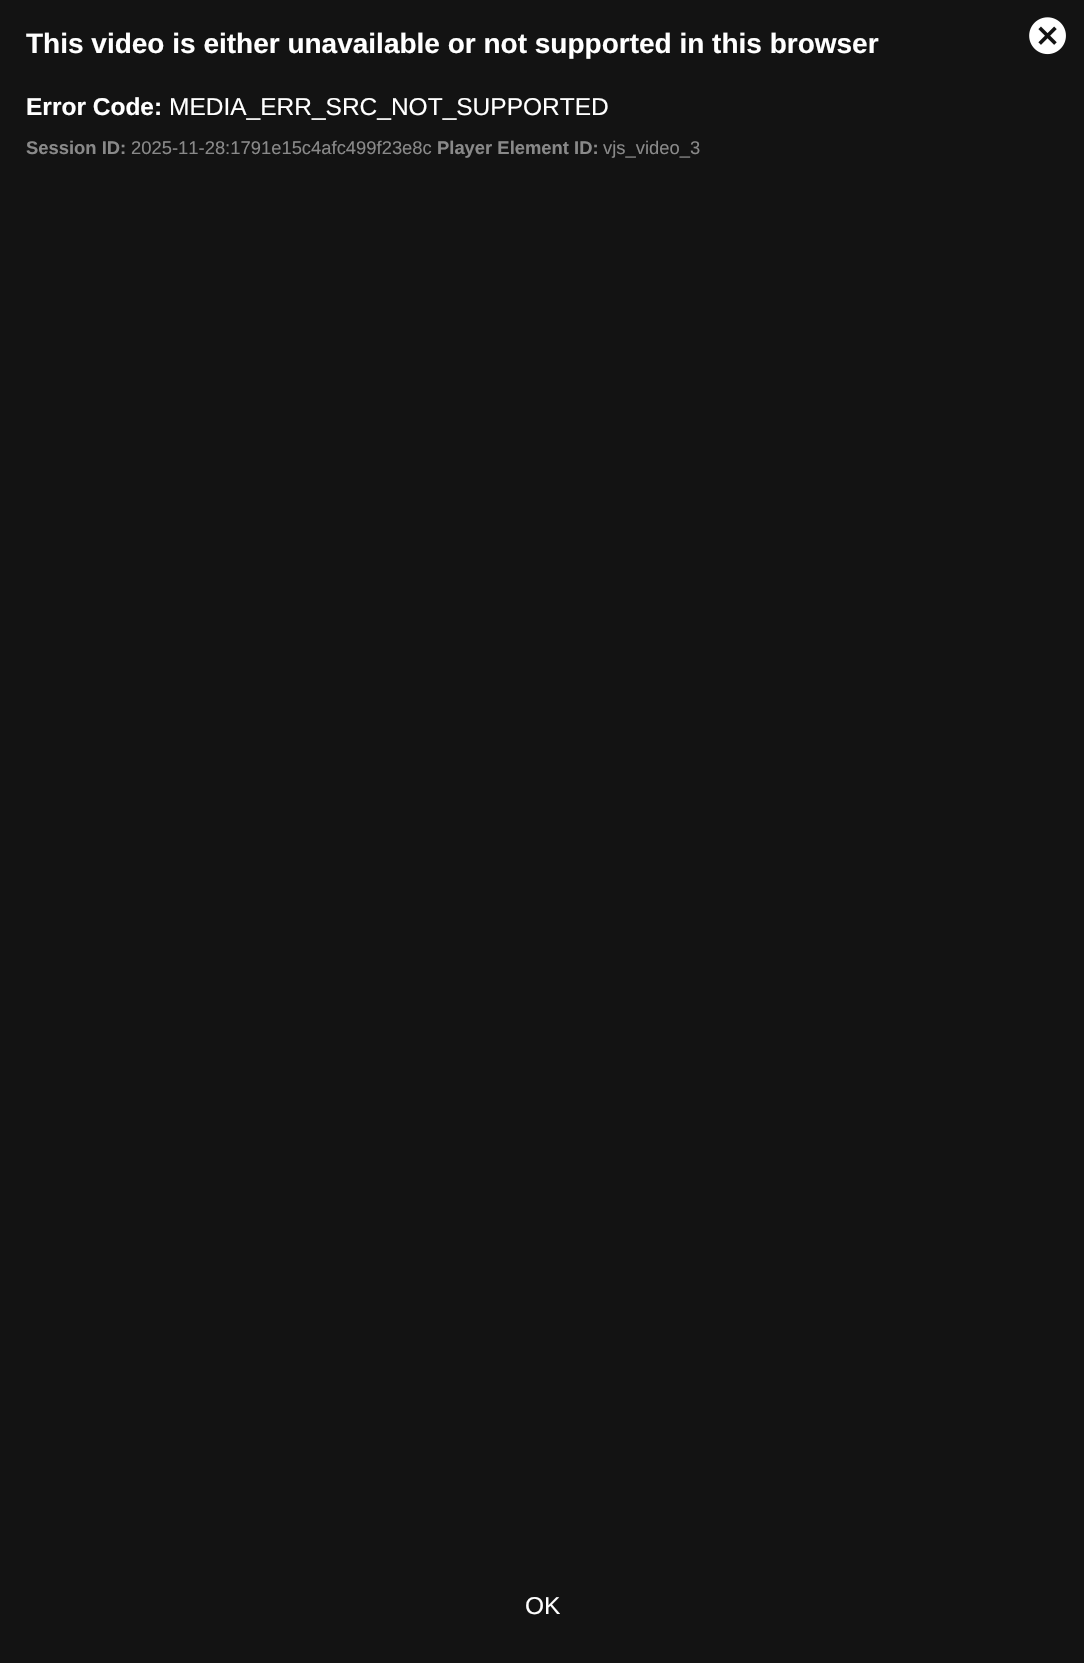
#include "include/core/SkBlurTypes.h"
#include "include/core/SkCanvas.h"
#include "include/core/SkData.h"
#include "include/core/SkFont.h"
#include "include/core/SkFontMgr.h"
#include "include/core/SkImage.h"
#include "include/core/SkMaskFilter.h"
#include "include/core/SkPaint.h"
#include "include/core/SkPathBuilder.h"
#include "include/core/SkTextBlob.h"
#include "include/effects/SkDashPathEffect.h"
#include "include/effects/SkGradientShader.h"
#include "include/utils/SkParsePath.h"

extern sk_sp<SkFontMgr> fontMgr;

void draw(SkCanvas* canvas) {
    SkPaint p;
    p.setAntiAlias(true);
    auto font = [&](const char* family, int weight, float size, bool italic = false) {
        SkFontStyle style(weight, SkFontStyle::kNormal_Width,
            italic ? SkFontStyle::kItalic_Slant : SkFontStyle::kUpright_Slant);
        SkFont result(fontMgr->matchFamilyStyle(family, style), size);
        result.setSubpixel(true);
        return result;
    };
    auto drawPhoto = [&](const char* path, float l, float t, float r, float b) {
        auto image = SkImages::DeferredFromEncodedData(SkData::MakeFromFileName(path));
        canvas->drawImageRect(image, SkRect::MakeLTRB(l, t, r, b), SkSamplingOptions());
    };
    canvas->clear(0xFF131313);
    auto font1 = font("Liberation Sans", 700, 28);
    p.setColor(0xFFFFFFFF);
    canvas->drawString("This video is either unavailable or not supported in this browser", 26, 53, font1, p);
    auto font2 = font("Liberation Sans", 700, 24.5f);
    canvas->drawString("Error Code:", 26, 115, font2, p);
    auto font3 = font("Liberation Sans", 400, 24.5f);
    canvas->drawString("MEDIA_ERR_SRC_NOT_SUPPORTED", 169, 115, font3, p);
    auto font4 = font("Liberation Sans", 700, 18.4f);
    p.setColor(0xFF898989);
    canvas->drawString("Session ID:", 26, 154, font4, p);
    auto font5 = font("Liberation Sans", 400, 18.4f);
    canvas->drawString("2025-11-28:1791e15c4afc499f23e8c", 131, 154, font5, p);
    canvas->drawString("Player Element ID:", 437, 154, font4, p);
    canvas->drawString("vjs_video_3", 603, 154, font5, p);
    drawPhoto("media/1.png", 1029, 17, 1066, 55);
    p.setColor(0xFFFFFFFF);
    canvas->drawString("OK", 525, 1614, font3, p);
}
